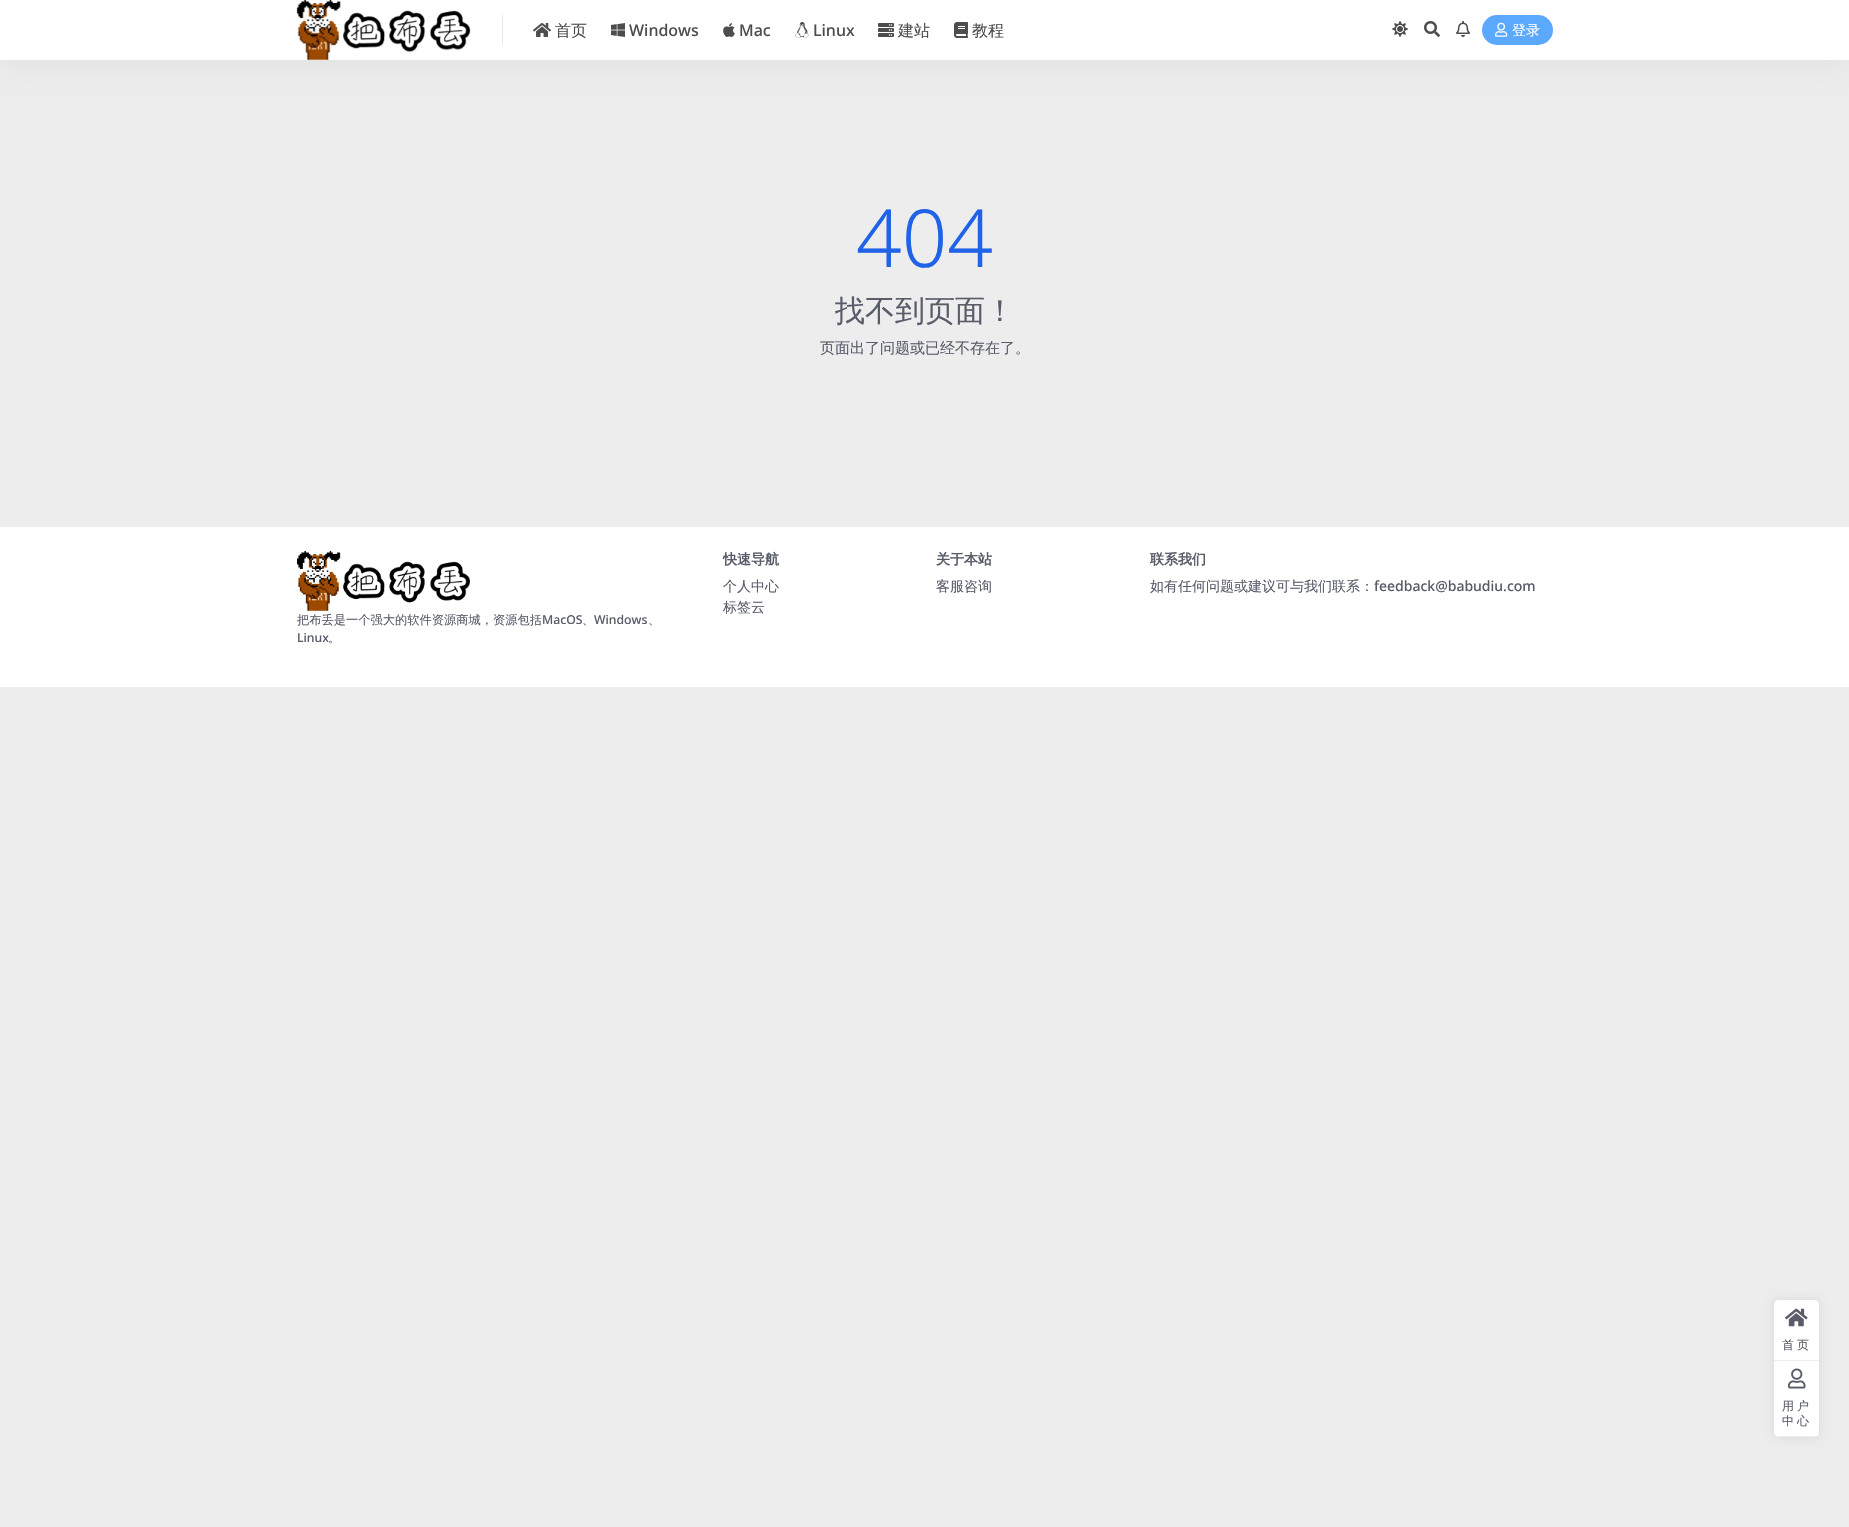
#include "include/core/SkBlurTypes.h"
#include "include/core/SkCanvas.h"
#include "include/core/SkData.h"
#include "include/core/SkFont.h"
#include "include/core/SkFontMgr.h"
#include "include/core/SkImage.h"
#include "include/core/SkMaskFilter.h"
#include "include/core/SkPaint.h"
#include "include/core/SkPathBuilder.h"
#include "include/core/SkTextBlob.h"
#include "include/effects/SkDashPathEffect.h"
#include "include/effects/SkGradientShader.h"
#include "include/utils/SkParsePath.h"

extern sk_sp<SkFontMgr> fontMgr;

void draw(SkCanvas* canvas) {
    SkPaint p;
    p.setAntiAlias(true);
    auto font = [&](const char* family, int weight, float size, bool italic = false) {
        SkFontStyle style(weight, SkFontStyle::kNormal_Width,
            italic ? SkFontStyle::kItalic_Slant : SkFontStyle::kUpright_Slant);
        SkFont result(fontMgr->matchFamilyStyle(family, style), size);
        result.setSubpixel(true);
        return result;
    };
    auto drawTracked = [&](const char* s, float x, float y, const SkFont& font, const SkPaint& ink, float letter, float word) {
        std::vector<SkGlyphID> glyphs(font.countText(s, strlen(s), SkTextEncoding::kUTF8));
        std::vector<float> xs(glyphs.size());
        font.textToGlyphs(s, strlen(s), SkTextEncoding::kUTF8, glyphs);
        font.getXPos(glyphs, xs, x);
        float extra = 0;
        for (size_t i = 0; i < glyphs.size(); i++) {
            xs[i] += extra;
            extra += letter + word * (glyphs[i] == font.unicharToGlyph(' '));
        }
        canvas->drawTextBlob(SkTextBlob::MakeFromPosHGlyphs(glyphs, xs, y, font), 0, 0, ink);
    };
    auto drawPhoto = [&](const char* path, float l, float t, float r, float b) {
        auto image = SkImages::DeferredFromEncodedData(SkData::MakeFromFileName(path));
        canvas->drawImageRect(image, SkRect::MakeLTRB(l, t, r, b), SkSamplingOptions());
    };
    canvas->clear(0xFFEDEDED);
    p.setColor(0x12000000);
    p.setMaskFilter(SkMaskFilter::MakeBlur(kNormal_SkBlurStyle, 15));
    canvas->drawRect(SkRect::MakeLTRB(0, 0, 1849, 60), p);
    p.setMaskFilter(nullptr);
    p.setColor(0xFFFFFFFF);
    canvas->drawRect(SkRect::MakeLTRB(0, 0, 1849, 60), p);
    drawPhoto("media/1.png", 296, 0, 471, 60);
    p.setColor(0xFFE8E8E9);
    canvas->drawRect(SkRect::MakeLTRB(502, 15, 503, 45), p);
    drawPhoto("media/2.png", 533, 23, 551, 37);
    auto font1 = font("WenQuanYi Zen Hei", 500, 16);
    p.setColor(0xFF4D4D4D);
    canvas->drawString("首页", 555, 36, font1, p);
    drawPhoto("media/3.png", 611, 23, 625, 37);
    auto font2 = font("Noto Sans", 500, 16);
    canvas->drawString("Windows", 629, 36, font2, p);
    drawPhoto("media/4.png", 723, 23, 735, 37);
    canvas->drawString("Mac", 739, 36, font2, p);
    drawPhoto("media/5.png", 795, 22, 809, 38);
    canvas->drawString("Linux", 813, 36, font2, p);
    drawPhoto("media/6.png", 878, 23, 894, 37);
    canvas->drawString("建站", 898, 36, font1, p);
    drawPhoto("media/7.png", 954, 22, 968, 38);
    canvas->drawString("教程", 972, 36, font1, p);
    drawPhoto("media/8.png", 1392, 21, 1408, 37);
    drawPhoto("media/9.png", 1424, 21, 1440, 37);
    drawPhoto("media/10.png", 1456, 21, 1470, 37);
    p.setColor(0xFF5BA8FF);
    canvas->drawRoundRect(SkRect::MakeLTRB(1482, 15, 1553, 45), 15, 15, p);
    drawPhoto("media/11.png", 1495, 22, 1508, 37);
    auto font3 = font("WenQuanYi Zen Hei", 500, 14);
    p.setColor(0xFFFFFFFF);
    canvas->drawString("登录", 1512, 35, font3, p);
    auto font4 = font("Noto Sans", 300, 80);
    p.setColor(0xFF2163E8);
    canvas->drawString("404", 856, 267, font4, p);
    auto font5 = font("WenQuanYi Zen Hei", 500, 30);
    p.setColor(0xFF595D69);
    canvas->drawString("找不到页面！", 835, 321, font5, p);
    auto font6 = font("WenQuanYi Zen Hei", 500, 15);
    canvas->drawString("页面出了问题或已经不存在了。", 820, 353, font6, p);
    p.setColor(0xFFFFFFFF);
    canvas->drawRect(SkRect::MakeLTRB(0, 527, 1849, 687), p);
    auto font7 = font("WenQuanYi Zen Hei", 700, 14);
    p.setColor(0xFF595D69);
    canvas->drawString("快速导航", 723, 564, font7, p);
    canvas->drawString("个人中心", 723, 591, font3, p);
    canvas->drawString("标签云", 723, 612, font3, p);
    canvas->drawString("关于本站", 936, 564, font7, p);
    canvas->drawString("客服咨询", 936, 591, font3, p);
    canvas->drawString("联系我们", 1150, 564, font7, p);
    canvas->drawString("如有任何问题或建议可与我们联系：", 1150, 591, font3, p);
    auto font8 = font("Noto Sans", 500, 14);
    canvas->drawString("feedback@babudiu.com", 1374, 591, font8, p);
    drawPhoto("media/12.png", 297, 551, 470, 611);
    auto font9 = font("WenQuanYi Zen Hei", 500, 12.25f);
    canvas->drawString("把布丢是一个强大的软件资源商城，资源包括", 297, 624, font9, p);
    auto font10 = font("Noto Sans", 500, 12.25f);
    canvas->drawString("MacOS", 542, 624, font10, p);
    canvas->drawString("、", 582, 624, font9, p);
    canvas->drawString("Windows", 594, 624, font10, p);
    canvas->drawString("、", 648, 624, font9, p);
    canvas->drawString("Linux", 297, 642, font10, p);
    canvas->drawString("。", 328, 642, font9, p);
    p.setColor(0x1A000000);
    p.setMaskFilter(SkMaskFilter::MakeBlur(kNormal_SkBlurStyle, 5));
    canvas->drawRoundRect(SkRect::MakeLTRB(1774, 1300, 1819, 1437), 5, 5, p);
    p.setMaskFilter(nullptr);
    p.setColor(0xFFFFFFFF);
    canvas->drawPath(SkPathBuilder().moveTo(1779, 1300).lineTo(1814, 1300).cubicTo(1817, 1300, 1819, 1302, 1819, 1305).lineTo(1819, 1361).lineTo(1774, 1361).lineTo(1774, 1305).cubicTo(1774, 1302, 1776, 1300, 1779, 1300).close().detach(), p);
    p.setColor(0xFFEEEEEE);
    canvas->drawRect(SkRect::MakeLTRB(1774, 1360, 1819, 1361), p);
    drawPhoto("media/13.png", 1785, 1308, 1808, 1327);
    auto font11 = font("WenQuanYi Zen Hei", 500, 12);
    p.setColor(0xFF595D69);
    drawTracked("首页", 1782, 1349, font11, p, 3, 0);
    p.setColor(0xFFFFFFFF);
    canvas->drawPath(SkPathBuilder().moveTo(1774, 1361).lineTo(1819, 1361).lineTo(1819, 1432).cubicTo(1819, 1435, 1817, 1437, 1814, 1437).lineTo(1779, 1437).cubicTo(1776, 1437, 1774, 1435, 1774, 1432).close().detach(), p);
    canvas->save();
    canvas->clipPath(SkPathBuilder().moveTo(1779, 1300).lineTo(1814, 1300).cubicTo(1817, 1300, 1819, 1302, 1819, 1305).lineTo(1819, 1432).cubicTo(1819, 1435, 1817, 1437, 1814, 1437).lineTo(1779, 1437).cubicTo(1776, 1437, 1774, 1435, 1774, 1432).lineTo(1774, 1305).cubicTo(1774, 1302, 1776, 1300, 1779, 1300).close().detach(), true);
    p.setColor(0xFFEEEEEE);
    canvas->drawRect(SkRect::MakeLTRB(1774, 1436, 1819, 1437), p);
    canvas->restore();
    drawPhoto("media/14.png", 1788, 1368, 1806, 1389);
    p.setColor(0xFF595D69);
    drawTracked("用户", 1782, 1410, font11, p, 3, 0);
    drawTracked("中心", 1782, 1425, font11, p, 3, 0);
}
